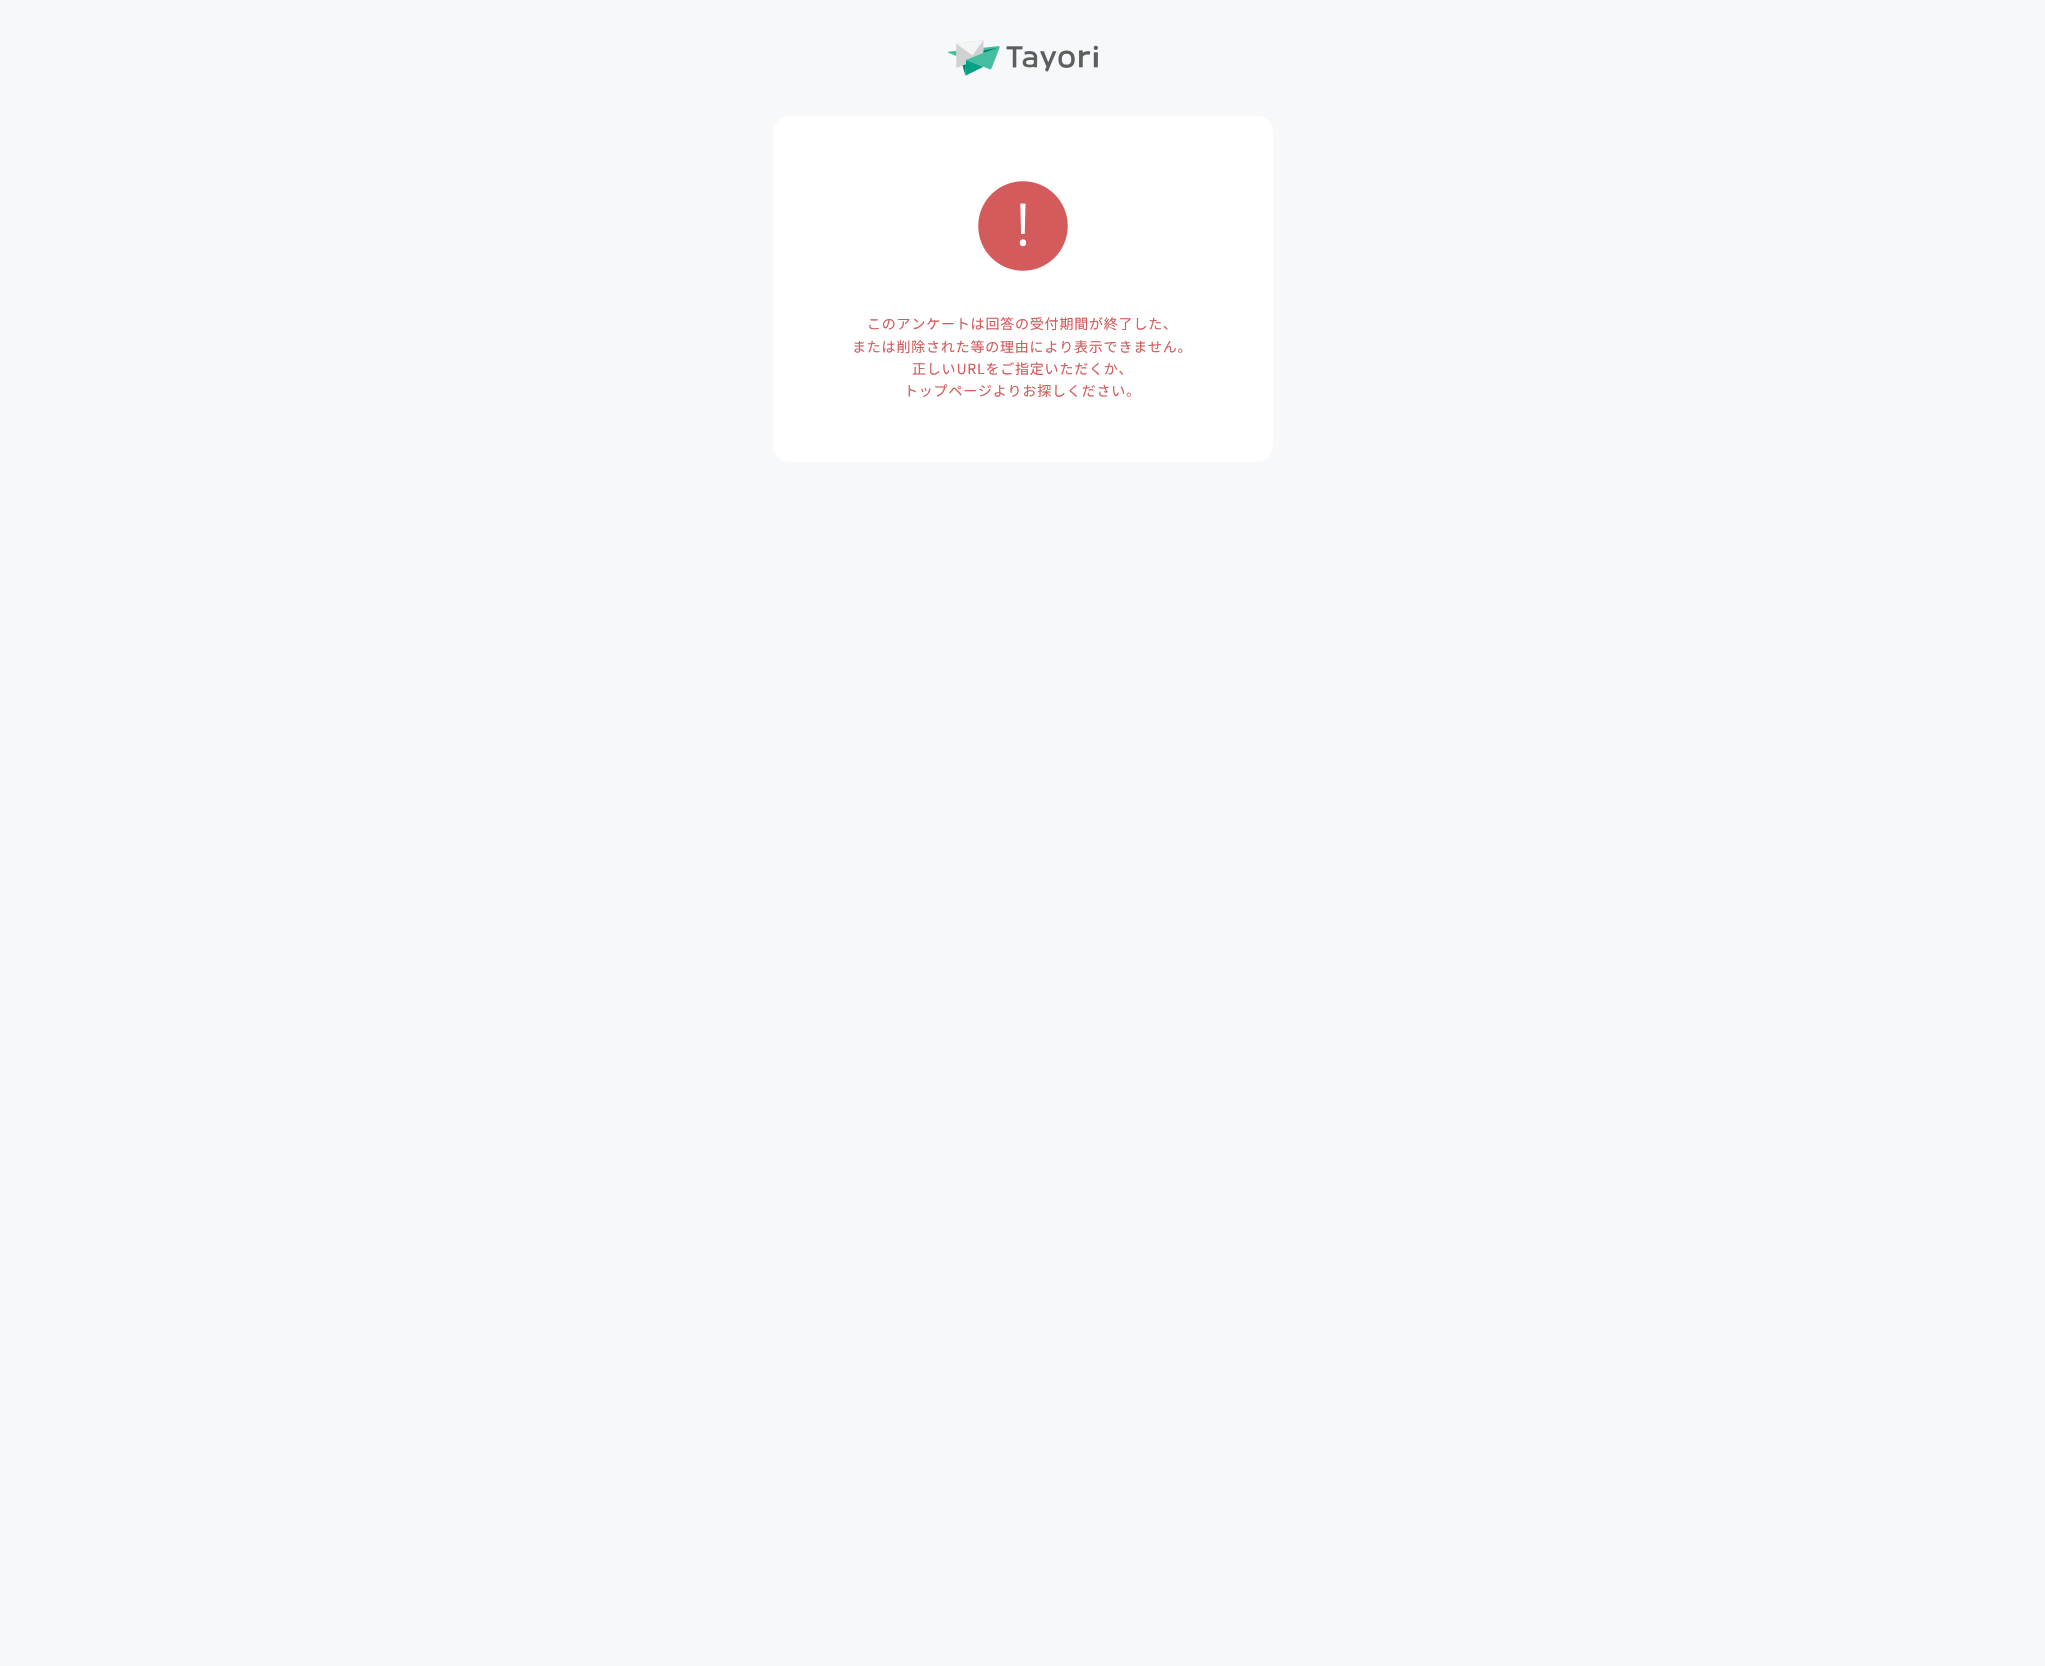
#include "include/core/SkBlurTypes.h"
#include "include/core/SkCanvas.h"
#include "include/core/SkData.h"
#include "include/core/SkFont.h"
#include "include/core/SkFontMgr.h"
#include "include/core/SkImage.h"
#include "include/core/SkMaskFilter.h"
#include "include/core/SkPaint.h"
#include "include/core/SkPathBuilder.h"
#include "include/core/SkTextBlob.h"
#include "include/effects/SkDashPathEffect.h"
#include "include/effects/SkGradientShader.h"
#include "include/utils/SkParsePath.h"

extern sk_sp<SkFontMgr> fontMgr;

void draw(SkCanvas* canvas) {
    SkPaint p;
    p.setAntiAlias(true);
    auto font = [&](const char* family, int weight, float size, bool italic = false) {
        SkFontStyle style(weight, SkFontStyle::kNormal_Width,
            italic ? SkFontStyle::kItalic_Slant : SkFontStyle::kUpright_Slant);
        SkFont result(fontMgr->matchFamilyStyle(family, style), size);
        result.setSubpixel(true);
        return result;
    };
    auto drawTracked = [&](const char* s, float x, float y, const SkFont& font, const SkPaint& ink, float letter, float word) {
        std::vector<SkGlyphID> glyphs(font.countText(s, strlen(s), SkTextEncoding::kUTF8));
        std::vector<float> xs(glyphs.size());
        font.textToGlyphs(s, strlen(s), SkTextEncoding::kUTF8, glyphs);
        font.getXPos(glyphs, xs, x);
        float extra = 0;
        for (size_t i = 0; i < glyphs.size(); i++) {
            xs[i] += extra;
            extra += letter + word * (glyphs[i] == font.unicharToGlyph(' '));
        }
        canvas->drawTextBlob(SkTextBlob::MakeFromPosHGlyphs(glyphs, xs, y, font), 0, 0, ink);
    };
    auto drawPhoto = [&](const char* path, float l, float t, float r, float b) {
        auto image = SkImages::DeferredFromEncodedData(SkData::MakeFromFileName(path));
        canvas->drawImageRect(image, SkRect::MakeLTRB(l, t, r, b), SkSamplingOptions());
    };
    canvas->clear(0xFFF7F8F9);
    drawPhoto("media/1.png", 948, 40, 1098, 76);
    p.setColor(0xFFFFFFFF);
    canvas->drawRoundRect(SkRect::MakeLTRB(773, 116, 1273, 462), 16, 16, p);
    drawPhoto("media/2.png", 978, 181, 1068, 271);
    auto font1 = font("Noto Sans JP", 400, 14);
    p.setColor(0xFFD45B5B);
    {
        const struct { const char* s; float x, y; } items[] = {
            {"このアンケートは回答の受付期間が終了した、", 867, 329},
            {"または削除された等の理由により表示できません。", 852, 352},
            {"正しいURLをご指定いただくか、", 912, 374},
            {"トップページよりお探しください。", 904, 396},
        };
        for (auto [s, x, y] : items) {
            drawTracked(s, x, y, font1, p, 0.8f, 0);
        }
    }
}
